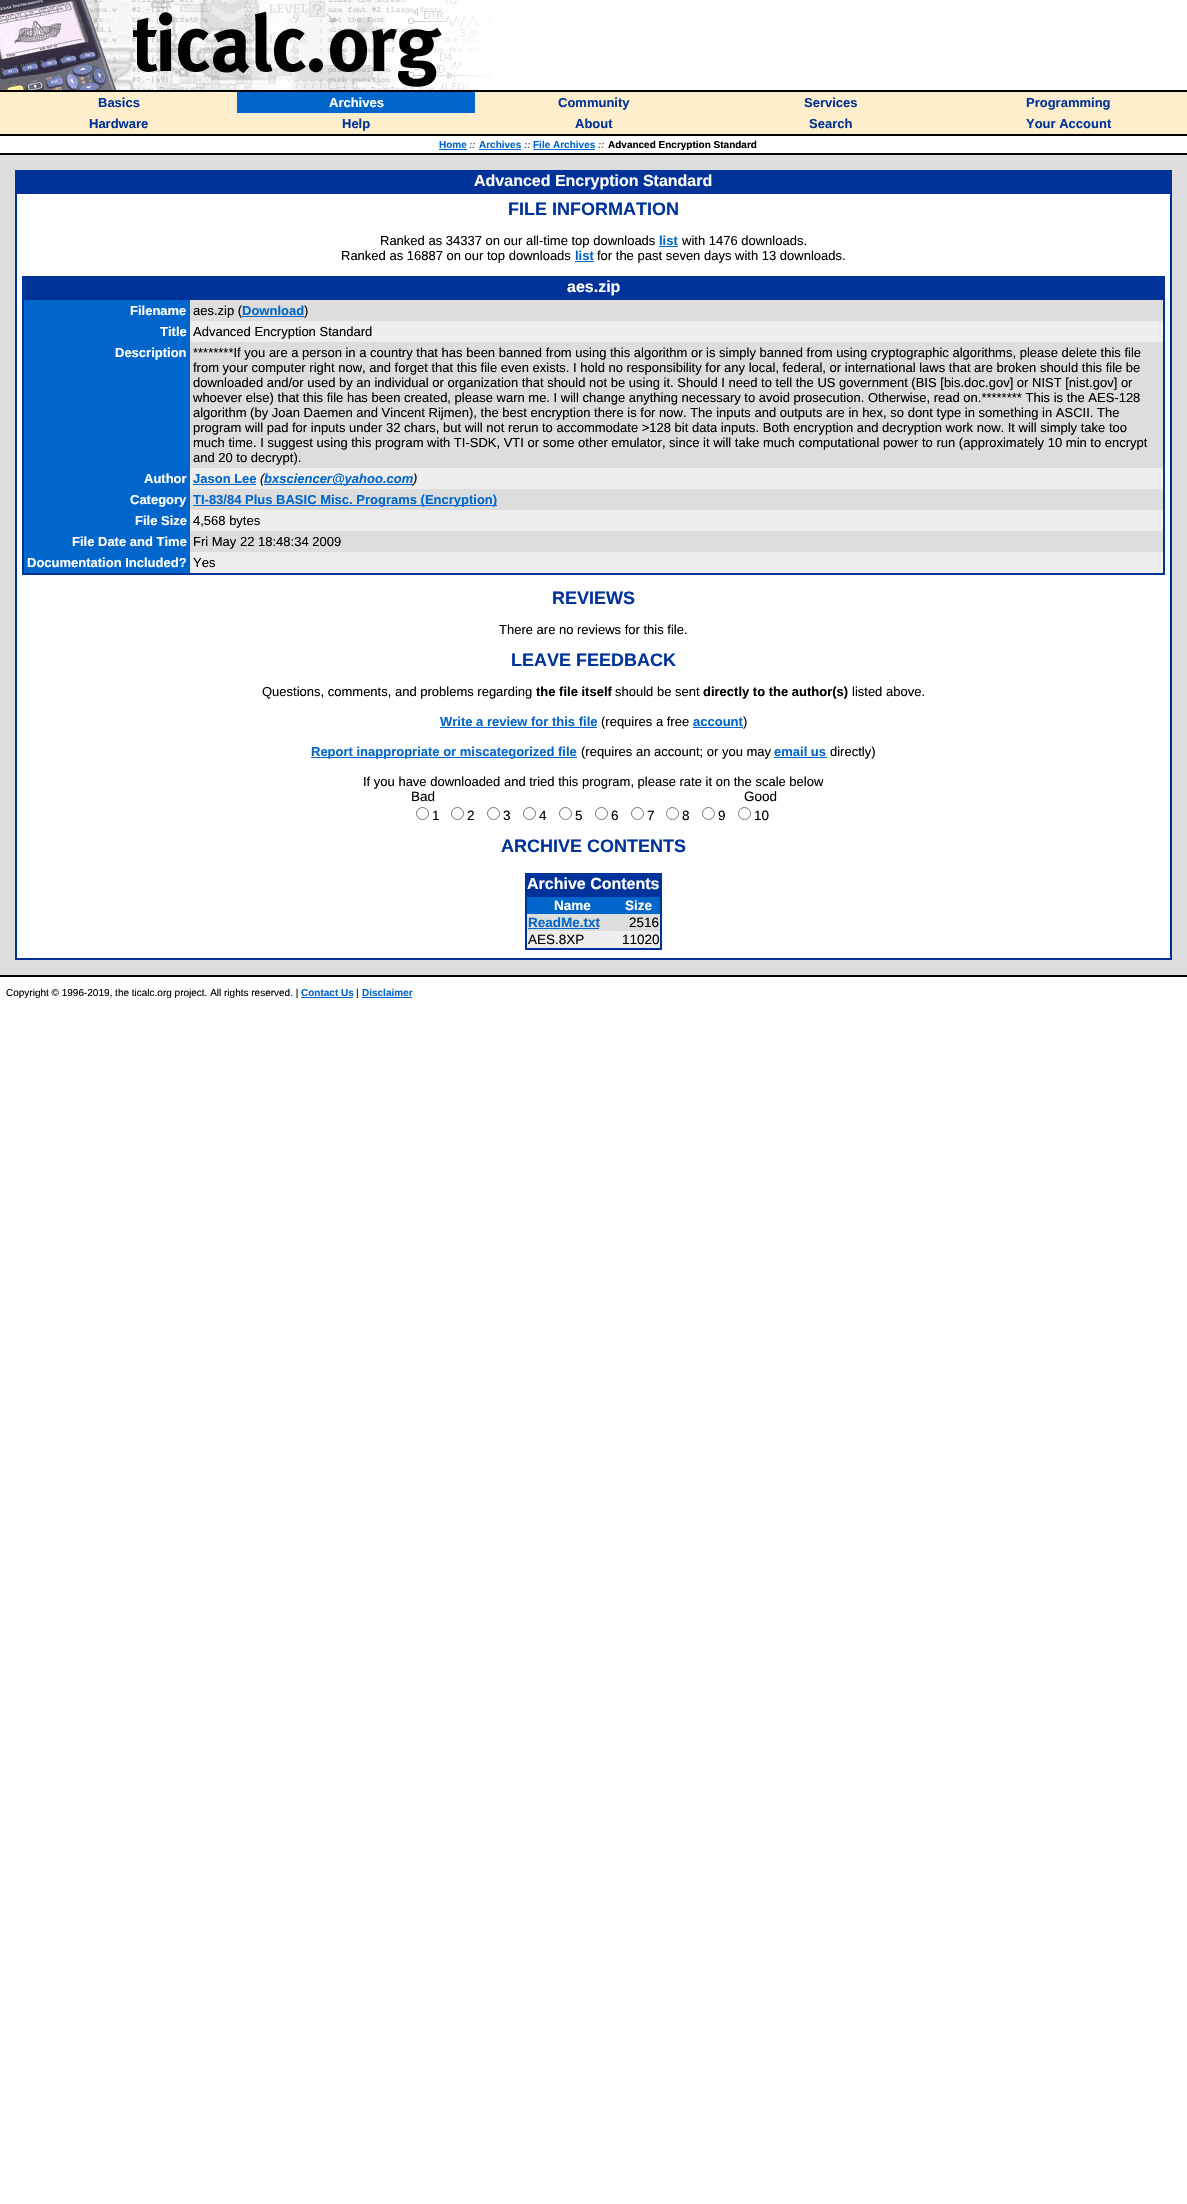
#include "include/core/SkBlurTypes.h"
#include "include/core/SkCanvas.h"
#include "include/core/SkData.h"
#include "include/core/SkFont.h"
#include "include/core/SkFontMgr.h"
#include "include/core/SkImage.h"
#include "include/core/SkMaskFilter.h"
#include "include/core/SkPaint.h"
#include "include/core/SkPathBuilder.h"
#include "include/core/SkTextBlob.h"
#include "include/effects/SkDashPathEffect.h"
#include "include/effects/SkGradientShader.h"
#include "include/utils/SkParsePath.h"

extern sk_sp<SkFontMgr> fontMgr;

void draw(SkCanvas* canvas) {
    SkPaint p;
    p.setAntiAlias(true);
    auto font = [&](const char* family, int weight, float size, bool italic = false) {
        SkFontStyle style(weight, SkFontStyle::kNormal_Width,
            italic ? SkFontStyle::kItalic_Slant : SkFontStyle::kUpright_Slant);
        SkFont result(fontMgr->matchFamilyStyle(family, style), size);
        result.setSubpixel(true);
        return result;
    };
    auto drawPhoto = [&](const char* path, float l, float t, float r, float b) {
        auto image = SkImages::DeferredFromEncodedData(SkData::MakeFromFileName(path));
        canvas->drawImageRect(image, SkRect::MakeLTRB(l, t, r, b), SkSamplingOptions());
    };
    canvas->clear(0xFFFFFFFF);
    drawPhoto("media/1.png", 0, 0, 491, 90);
    p.setColor(0xFF000000);
    canvas->drawRect(SkRect::MakeLTRB(0, 90, 1187, 92), p);
    p.setColor(0xFFFFEECC);
    canvas->drawRect(SkRect::MakeLTRB(0, 92, 1187, 134), p);
    auto font1 = font("Liberation Sans", 700, 13);
    p.setColor(0xFF003399);
    canvas->drawString("Basics", 98, 107, font1, p);
    p.setColor(0xFF0066CC);
    canvas->drawRect(SkRect::MakeLTRB(237, 92, 475, 113), p);
    p.setColor(0xFFFFFFFF);
    canvas->drawString("Archives", 329, 107, font1, p);
    p.setColor(0xFF003399);
    {
        const struct { const char* s; float x, y; } items[] = {
            {"Community", 558, 107},
            {"Services", 804, 107},
            {"Programming", 1026, 107},
            {"Hardware", 89, 128},
            {"Help", 342, 128},
            {"About", 575, 128},
            {"Search", 809, 128},
            {"Your Account", 1026, 128},
        };
        for (auto [s, x, y] : items) {
            canvas->drawString(s, x, y, font1, p);
        }
    }
    p.setColor(0xFF000000);
    canvas->drawRect(SkRect::MakeLTRB(0, 134, 1187, 136), p);
    auto font2 = font("Liberation Sans", 700, 10);
    p.setColor(0xFF0066CC);
    canvas->drawString("Home", 439, 148, font2, p);
    canvas->drawRect(SkRect::MakeLTRB(439, 149, 467, 150), p);
    auto font3 = font("Liberation Sans", 700, 10, true);
    p.setColor(0xFF666666);
    canvas->drawString("::", 469, 148, font3, p);
    p.setColor(0xFF0066CC);
    canvas->drawString("Archives", 479, 148, font2, p);
    canvas->drawRect(SkRect::MakeLTRB(479, 149, 521, 150), p);
    p.setColor(0xFF666666);
    canvas->drawString("::", 524, 148, font3, p);
    p.setColor(0xFF0066CC);
    canvas->drawString("File Archives", 533, 148, font2, p);
    canvas->drawRect(SkRect::MakeLTRB(533, 149, 595, 150), p);
    p.setColor(0xFF666666);
    canvas->drawString("::", 598, 148, font3, p);
    p.setColor(0xFF000000);
    canvas->drawString("Advanced Encryption Standard", 608, 148, font2, p);
    {
        const struct { float l, t, r, b; SkColor color; } items[] = {
            {0, 153, 1187, 155, 0xFF000000},
            {0, 155, 1187, 975, 0xFFDDDDDD},
            {15, 170, 1172, 960, 0xFF003399},
        };
        for (auto [l, t, r, b, color] : items) {
            p.setColor(color);
            canvas->drawRect(SkRect::MakeLTRB(l, t, r, b), p);
        }
    }
    auto font4 = font("Liberation Sans", 700, 16);
    p.setColor(0xFFFFFFFF);
    canvas->drawString("Advanced Encryption Standard", 474, 186, font4, p);
    canvas->drawRect(SkRect::MakeLTRB(17, 194, 1170, 958), p);
    auto font5 = font("Liberation Sans", 700, 18);
    p.setColor(0xFF003399);
    canvas->drawString("FILE INFORMATION", 508, 215, font5, p);
    auto font6 = font("Liberation Sans", 400, 13);
    p.setColor(0xFF000000);
    canvas->drawString("Ranked as 34337 on our all-time top downloads", 380, 245, font6, p);
    p.setColor(0xFF0066CC);
    canvas->drawString("list", 659, 245, font1, p);
    canvas->drawRect(SkRect::MakeLTRB(659, 246, 678, 247), p);
    p.setColor(0xFF000000);
    canvas->drawString("with 1476 downloads.", 682, 245, font6, p);
    canvas->drawString("Ranked as 16887 on our top downloads", 341, 260, font6, p);
    p.setColor(0xFF0066CC);
    canvas->drawString("list", 575, 260, font1, p);
    canvas->drawRect(SkRect::MakeLTRB(575, 261, 594, 262), p);
    p.setColor(0xFF000000);
    canvas->drawString("for the past seven days with 13 downloads.", 597, 260, font6, p);
    p.setColor(0xFF003399);
    canvas->drawRect(SkRect::MakeLTRB(22, 276, 1165, 575), p);
    p.setColor(0xFFFFFFFF);
    canvas->drawString("aes.zip", 567, 292, font4, p);
    p.setColor(0xFF0066CC);
    canvas->drawRect(SkRect::MakeLTRB(24, 300, 190, 573), p);
    p.setColor(0xFFFFFFFF);
    canvas->drawString("Filename", 130, 315, font1, p);
    p.setColor(0xFFDDDDDD);
    canvas->drawRect(SkRect::MakeLTRB(190, 300, 1163, 321), p);
    p.setColor(0xFF000000);
    canvas->drawString("aes.zip (", 193, 315, font6, p);
    p.setColor(0xFF0066CC);
    canvas->drawRect(SkRect::MakeLTRB(242, 316, 304, 317), p);
    canvas->drawString("Download", 242, 315, font1, p);
    p.setColor(0xFF000000);
    canvas->drawString(")", 304, 315, font6, p);
    p.setColor(0xFFFFFFFF);
    canvas->drawString("Title", 160, 336, font1, p);
    p.setColor(0xFFEEEEEE);
    canvas->drawRect(SkRect::MakeLTRB(190, 321, 1163, 342), p);
    p.setColor(0xFF000000);
    canvas->drawString("Advanced Encryption Standard", 193, 336, font6, p);
    p.setColor(0xFFFFFFFF);
    canvas->drawString("Description", 115, 357, font1, p);
    p.setColor(0xFFDDDDDD);
    canvas->drawRect(SkRect::MakeLTRB(190, 342, 1163, 468), p);
    p.setColor(0xFF000000);
    {
        const struct { const char* s; float x, y; } items[] = {
            {"********If you are a person in a country that has been banned from using this algorithm or is simply banned from using cryptographic algorithms, please delete this file", 193, 357},
            {"from your computer right now, and forget that this file even exists. I hold no responsibility for any local, federal, or international laws that are broken should this file be", 193, 372},
            {"downloaded and/or used by an individual or organization that should not be using it. Should I need to tell the US government (BIS [bis.doc.gov] or NIST [nist.gov] or", 193, 387},
            {"whoever else) that this file has been created, please warn me. I will change anything necessary to avoid prosecution. Otherwise, read on.******** This is the AES-128", 193, 402},
            {"algorithm (by Joan Daemen and Vincent Rijmen), the best encryption there is for now. The inputs and outputs are in hex, so dont type in something in ASCII. The", 193, 417},
            {"program will pad for inputs under 32 chars, but will not rerun to accommodate >128 bit data inputs. Both encryption and decryption work now. It will simply take too", 193, 432},
            {"much time. I suggest using this program with TI-SDK, VTI or some other emulator, since it will take much computational power to run (approximately 10 min to encrypt", 193, 447},
            {"and 20 to decrypt).", 193, 462},
        };
        for (auto [s, x, y] : items) {
            canvas->drawString(s, x, y, font6, p);
        }
    }
    p.setColor(0xFFFFFFFF);
    canvas->drawString("Author", 144, 483, font1, p);
    p.setColor(0xFFEEEEEE);
    canvas->drawRect(SkRect::MakeLTRB(190, 468, 1163, 489), p);
    p.setColor(0xFF0066CC);
    canvas->drawString("Jason Lee", 193, 483, font1, p);
    canvas->drawRect(SkRect::MakeLTRB(193, 484, 256, 485), p);
    auto font7 = font("Liberation Sans", 400, 13, true);
    p.setColor(0xFF000000);
    canvas->drawString("(", 260, 483, font7, p);
    p.setColor(0xFF0066CC);
    canvas->drawRect(SkRect::MakeLTRB(264, 484, 413, 485), p);
    auto font8 = font("Liberation Sans", 700, 13, true);
    canvas->drawString("bxsciencer@yahoo.com", 264, 483, font8, p);
    p.setColor(0xFF000000);
    canvas->drawString(")", 413, 483, font7, p);
    p.setColor(0xFFFFFFFF);
    canvas->drawString("Category", 130, 504, font1, p);
    p.setColor(0xFFDDDDDD);
    canvas->drawRect(SkRect::MakeLTRB(190, 489, 1163, 510), p);
    p.setColor(0xFF0066CC);
    canvas->drawRect(SkRect::MakeLTRB(193, 505, 497, 506), p);
    canvas->drawString("TI-83/84 Plus BASIC Misc. Programs (Encryption)", 193, 504, font1, p);
    p.setColor(0xFFFFFFFF);
    canvas->drawString("File Size", 135, 525, font1, p);
    p.setColor(0xFFEEEEEE);
    canvas->drawRect(SkRect::MakeLTRB(190, 510, 1163, 531), p);
    p.setColor(0xFF000000);
    canvas->drawString("4,568 bytes", 193, 525, font6, p);
    p.setColor(0xFFFFFFFF);
    canvas->drawString("File Date and Time", 72, 546, font1, p);
    p.setColor(0xFFDDDDDD);
    canvas->drawRect(SkRect::MakeLTRB(190, 531, 1163, 552), p);
    p.setColor(0xFF000000);
    canvas->drawString("Fri May 22 18:48:34 2009", 193, 546, font6, p);
    p.setColor(0xFFFFFFFF);
    canvas->drawString("Documentation Included?", 27, 567, font1, p);
    p.setColor(0xFFEEEEEE);
    canvas->drawRect(SkRect::MakeLTRB(190, 552, 1163, 573), p);
    p.setColor(0xFF000000);
    canvas->drawString("Yes", 193, 567, font6, p);
    p.setColor(0xFF003399);
    canvas->drawString("REVIEWS", 552, 604, font5, p);
    p.setColor(0xFF000000);
    canvas->drawString("There are no reviews for this file.", 499, 634, font6, p);
    p.setColor(0xFF003399);
    canvas->drawString("LEAVE FEEDBACK", 511, 666, font5, p);
    p.setColor(0xFF000000);
    canvas->drawString("Questions, comments, and problems regarding", 262, 696, font6, p);
    canvas->drawString("the file itself", 536, 696, font1, p);
    canvas->drawString("should be sent", 615, 696, font6, p);
    canvas->drawString("directly to the author(s)", 703, 696, font1, p);
    canvas->drawString("listed above.", 852, 696, font6, p);
    p.setColor(0xFF0066CC);
    canvas->drawString("Write a review for this file", 440, 726, font1, p);
    canvas->drawRect(SkRect::MakeLTRB(440, 727, 597, 728), p);
    p.setColor(0xFF000000);
    canvas->drawString("(requires a free", 601, 726, font6, p);
    p.setColor(0xFF0066CC);
    canvas->drawString("account", 693, 726, font1, p);
    canvas->drawRect(SkRect::MakeLTRB(693, 727, 743, 728), p);
    p.setColor(0xFF000000);
    canvas->drawString(")", 743, 726, font6, p);
    p.setColor(0xFF0066CC);
    canvas->drawRect(SkRect::MakeLTRB(311, 757, 577, 758), p);
    canvas->drawString("Report inappropriate or miscategorized file", 311, 756, font1, p);
    p.setColor(0xFF000000);
    canvas->drawString("(requires an account; or you may", 581, 756, font6, p);
    p.setColor(0xFF0066CC);
    canvas->drawString("email us", 774, 756, font1, p);
    canvas->drawRect(SkRect::MakeLTRB(774, 757, 827, 758), p);
    p.setColor(0xFF000000);
    canvas->drawString("directly)", 830, 756, font6, p);
    canvas->drawString("If you have downloaded and tried this program, please rate it on the scale below", 363, 786, font6, p);
    auto font9 = font("Liberation Sans", 400, 13.5f);
    canvas->drawString("Bad", 411, 801, font9, p);
    canvas->drawString("Good", 744, 801, font9, p);
    p.setStyle(SkPaint::kStroke_Style);
    p.setStrokeWidth(1);
    p.setColor(0xFF767676);
    canvas->drawCircle(422.5f, 813.5f, 6, p);
    p.setStyle(SkPaint::kFill_Style);
    p.setColor(0xFF000000);
    canvas->drawString("1", 432, 820, font9, p);
    p.setStyle(SkPaint::kStroke_Style);
    p.setColor(0xFF767676);
    canvas->drawCircle(457.5f, 813.5f, 6, p);
    p.setStyle(SkPaint::kFill_Style);
    p.setColor(0xFF000000);
    canvas->drawString("2", 467, 820, font9, p);
    p.setStyle(SkPaint::kStroke_Style);
    p.setColor(0xFF767676);
    canvas->drawCircle(493.5f, 813.5f, 6, p);
    p.setStyle(SkPaint::kFill_Style);
    p.setColor(0xFF000000);
    canvas->drawString("3", 503, 820, font9, p);
    p.setStyle(SkPaint::kStroke_Style);
    p.setColor(0xFF767676);
    canvas->drawCircle(529.5f, 813.5f, 6, p);
    p.setStyle(SkPaint::kFill_Style);
    p.setColor(0xFF000000);
    canvas->drawString("4", 539, 820, font9, p);
    p.setStyle(SkPaint::kStroke_Style);
    p.setColor(0xFF767676);
    canvas->drawCircle(565.5f, 813.5f, 6, p);
    p.setStyle(SkPaint::kFill_Style);
    p.setColor(0xFF000000);
    canvas->drawString("5", 575, 820, font9, p);
    p.setStyle(SkPaint::kStroke_Style);
    p.setColor(0xFF767676);
    canvas->drawCircle(601.5f, 813.5f, 6, p);
    p.setStyle(SkPaint::kFill_Style);
    p.setColor(0xFF000000);
    canvas->drawString("6", 611, 820, font9, p);
    p.setStyle(SkPaint::kStroke_Style);
    p.setColor(0xFF767676);
    canvas->drawCircle(637.5f, 813.5f, 6, p);
    p.setStyle(SkPaint::kFill_Style);
    p.setColor(0xFF000000);
    canvas->drawString("7", 647, 820, font9, p);
    p.setStyle(SkPaint::kStroke_Style);
    p.setColor(0xFF767676);
    canvas->drawCircle(672.5f, 813.5f, 6, p);
    p.setStyle(SkPaint::kFill_Style);
    p.setColor(0xFF000000);
    canvas->drawString("8", 682, 820, font9, p);
    p.setStyle(SkPaint::kStroke_Style);
    p.setColor(0xFF767676);
    canvas->drawCircle(708.5f, 813.5f, 6, p);
    p.setStyle(SkPaint::kFill_Style);
    p.setColor(0xFF000000);
    canvas->drawString("9", 718, 820, font9, p);
    p.setStyle(SkPaint::kStroke_Style);
    p.setColor(0xFF767676);
    canvas->drawCircle(744.5f, 813.5f, 6, p);
    p.setStyle(SkPaint::kFill_Style);
    p.setColor(0xFF000000);
    canvas->drawString("10", 754, 820, font9, p);
    p.setColor(0xFF003399);
    canvas->drawString("ARCHIVE CONTENTS", 501, 852, font5, p);
    canvas->drawRect(SkRect::MakeLTRB(525, 873, 662, 950), p);
    p.setColor(0xFFFFFFFF);
    canvas->drawString("Archive Contents", 527, 889, font4, p);
    p.setColor(0xFF0066CC);
    canvas->drawRect(SkRect::MakeLTRB(527, 897, 660, 914), p);
    auto font10 = font("Liberation Sans", 700, 13.5f);
    p.setColor(0xFFFFFFFF);
    canvas->drawString("Name", 554, 910, font10, p);
    canvas->drawString("Size", 625, 910, font10, p);
    p.setColor(0xFFDDDDDD);
    canvas->drawRect(SkRect::MakeLTRB(527, 914, 660, 931), p);
    p.setColor(0xFF0066CC);
    canvas->drawString("ReadMe.txt", 528, 927, font10, p);
    canvas->drawRect(SkRect::MakeLTRB(528, 928, 599, 929), p);
    p.setColor(0xFF000000);
    canvas->drawString("2516", 629, 927, font9, p);
    p.setColor(0xFFEEEEEE);
    canvas->drawRect(SkRect::MakeLTRB(527, 931, 660, 948), p);
    p.setColor(0xFF000000);
    canvas->drawString("AES.8XP", 528, 944, font9, p);
    canvas->drawString("11020", 622, 944, font9, p);
    canvas->drawRect(SkRect::MakeLTRB(0, 975, 1187, 977), p);
    auto font11 = font("Liberation Sans", 400, 10);
    canvas->drawString("Copyright © 1996-2019, the ticalc.org project. All rights reserved. |", 6, 996, font11, p);
    p.setColor(0xFF0066CC);
    canvas->drawString("Contact Us", 301, 996, font2, p);
    canvas->drawRect(SkRect::MakeLTRB(301, 997, 353, 998), p);
    p.setColor(0xFF000000);
    canvas->drawString("|", 356, 996, font11, p);
    p.setColor(0xFF0066CC);
    canvas->drawString("Disclaimer", 362, 996, font2, p);
    canvas->drawRect(SkRect::MakeLTRB(362, 997, 412, 998), p);
}
